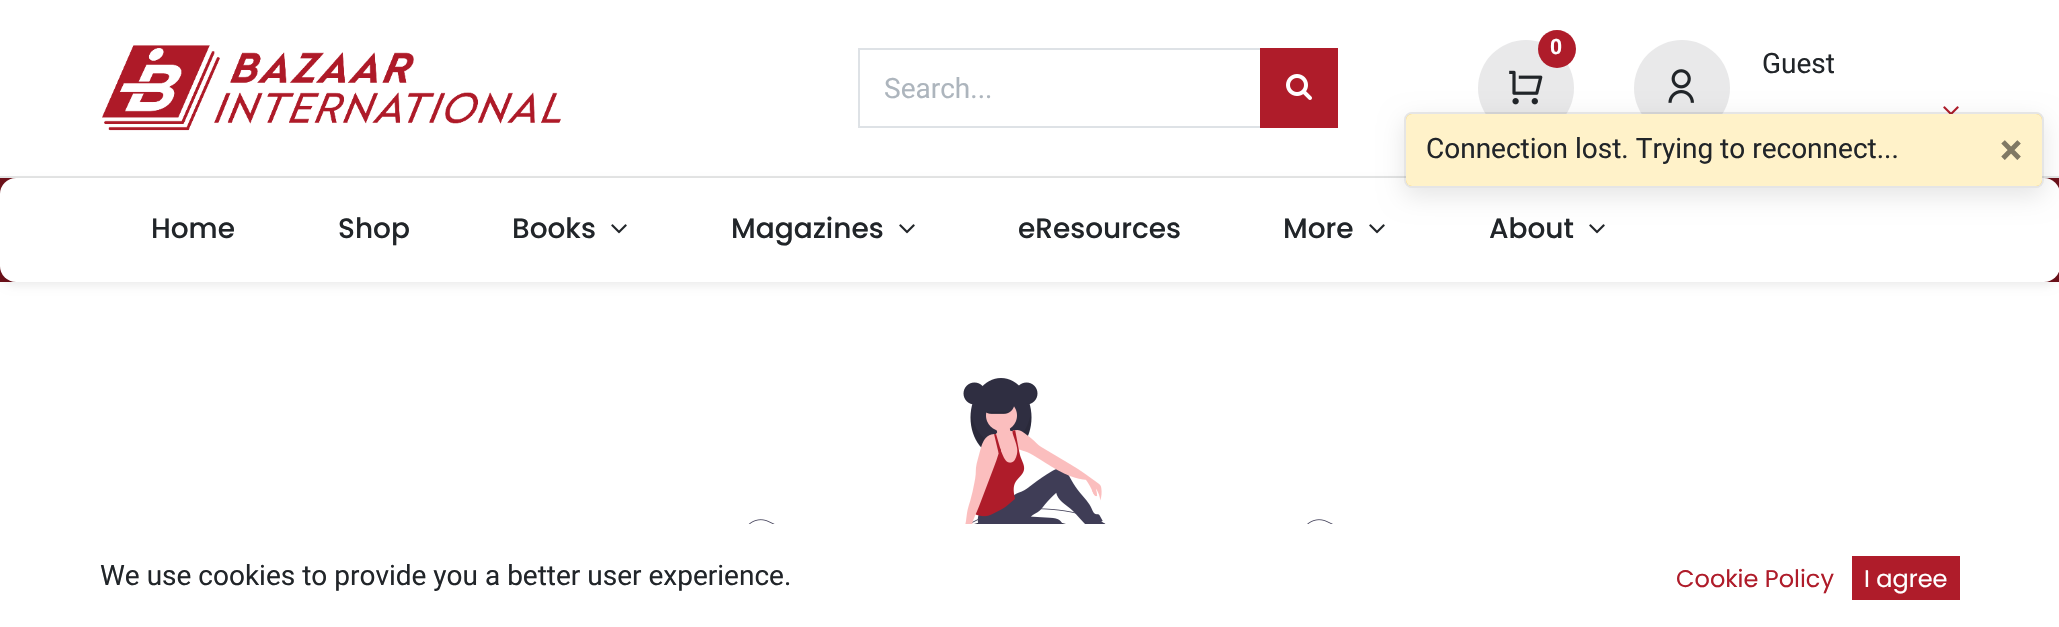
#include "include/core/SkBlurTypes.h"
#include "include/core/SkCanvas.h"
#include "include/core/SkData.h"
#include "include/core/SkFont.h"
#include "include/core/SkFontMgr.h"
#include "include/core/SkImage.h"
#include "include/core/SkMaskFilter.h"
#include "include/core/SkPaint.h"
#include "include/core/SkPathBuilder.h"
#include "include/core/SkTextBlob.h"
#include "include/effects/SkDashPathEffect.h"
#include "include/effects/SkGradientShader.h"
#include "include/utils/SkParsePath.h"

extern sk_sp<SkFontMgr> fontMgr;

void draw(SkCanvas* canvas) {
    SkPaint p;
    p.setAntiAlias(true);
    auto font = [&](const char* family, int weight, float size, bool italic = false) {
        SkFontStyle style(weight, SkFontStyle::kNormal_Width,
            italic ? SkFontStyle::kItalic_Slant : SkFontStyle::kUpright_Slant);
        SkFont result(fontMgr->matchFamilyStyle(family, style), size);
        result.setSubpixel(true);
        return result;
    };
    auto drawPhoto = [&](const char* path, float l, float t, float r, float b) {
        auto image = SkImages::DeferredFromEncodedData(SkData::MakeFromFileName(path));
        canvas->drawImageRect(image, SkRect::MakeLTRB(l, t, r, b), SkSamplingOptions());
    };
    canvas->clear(0xFF6D111A);
    p.setColor(0xFFFFFFFF);
    canvas->drawRect(SkRect::MakeLTRB(0, 0, 2059, 176), p);
    p.setColor(0xFFE4E5E5);
    canvas->drawRect(SkRect::MakeLTRB(0, 176, 2059, 178), p);
    drawPhoto("media/1.png", 102, 45, 561, 131);
    p.setStyle(SkPaint::kStroke_Style);
    p.setStrokeWidth(2);
    p.setColor(0xFFDEE2E6);
    canvas->drawRect(SkRect::MakeLTRB(859, 49, 1261, 127), p);
    auto font1 = font("Roboto", 400, 28);
    p.setStyle(SkPaint::kFill_Style);
    p.setColor(0xFFADB5BD);
    canvas->drawString("Search...", 884, 98, font1, p);
    p.setColor(0xFFAF1C2A);
    canvas->drawRect(SkRect::MakeLTRB(1260, 48, 1338, 128), p);
    drawPhoto("media/2.png", 1286, 74, 1312, 100);
    p.setColor(0xFFE9E9EA);
    canvas->drawCircle(1526, 88, 48, p);
    p.setColor(0xFFAF1C2A);
    canvas->drawCircle(1557, 49, 19, p);
    auto font2 = font("Roboto", 700, 21);
    p.setColor(0xFFFFFFFF);
    canvas->drawString("0", 1550, 54, font2, p);
    drawPhoto("media/3.png", 1509, 70, 1543, 105);
    p.setColor(0xFFE9E9EA);
    canvas->drawCircle(1682, 88, 48, p);
    drawPhoto("media/4.png", 1668, 69, 1694, 103);
    p.setColor(0xFF212529);
    canvas->drawString("Guest", 1762, 73, font1, p);
    drawPhoto("media/5.png", 1943, 106, 1959, 114);
    p.setColor(0xFFFFFFFF);
    canvas->drawRect(SkRect::MakeLTRB(0, 282, 2059, 627), p);
    p.setColor(0x12000000);
    p.setMaskFilter(SkMaskFilter::MakeBlur(kNormal_SkBlurStyle, 4));
    canvas->drawRoundRect(SkRect::MakeLTRB(0, 182, 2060, 286), 16, 16, p);
    p.setMaskFilter(nullptr);
    p.setColor(0xFFFFFFFF);
    canvas->drawRoundRect(SkRect::MakeLTRB(0, 178, 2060, 282), 16, 16, p);
    auto font3 = font("Poppins", 500, 28);
    p.setColor(0xFF212529);
    {
        const struct { const char* s; float x, y; } items[] = {
            {"Home", 151, 238},
            {"Shop", 338, 238},
            {"Books", 512, 238},
        };
        for (auto [s, x, y] : items) {
            canvas->drawString(s, x, y, font3, p);
        }
    }
    drawPhoto("media/6.png", 611, 224, 627, 234);
    canvas->drawString("Magazines", 731, 238, font3, p);
    drawPhoto("media/6.png", 899, 224, 915, 234);
    canvas->drawString("eResources", 1018, 238, font3, p);
    canvas->drawString("More", 1283, 238, font3, p);
    drawPhoto("media/6.png", 1369, 224, 1385, 234);
    canvas->drawString("About", 1489, 238, font3, p);
    drawPhoto("media/6.png", 1589, 224, 1605, 234);
    drawPhoto("media/7.png", 748, 378, 1333, 524);
    canvas->drawString("We use cookies to provide you a better user experience.", 100, 585, font1, p);
    auto font4 = font("Poppins", 400, 24);
    p.setColor(0xFFAF1C2A);
    canvas->drawString("Cookie Policy", 1676, 587, font4, p);
    canvas->drawRect(SkRect::MakeLTRB(1852, 556, 1960, 600), p);
    p.setColor(0xFFFFFFFF);
    canvas->drawString("I agree", 1864, 587, font4, p);
    canvas->save();
    canvas->clipPath(SkPathBuilder(SkPathFillType::kEvenOdd).moveTo(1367, 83).lineTo(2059, 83).lineTo(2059, 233).lineTo(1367, 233).close().moveTo(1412, 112).lineTo(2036, 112).cubicTo(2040.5f, 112, 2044, 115.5f, 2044, 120).lineTo(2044, 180).cubicTo(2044, 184.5f, 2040.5f, 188, 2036, 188).lineTo(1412, 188).cubicTo(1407.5f, 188, 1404, 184.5f, 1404, 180).lineTo(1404, 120).cubicTo(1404, 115.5f, 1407.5f, 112, 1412, 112).close().detach(), true);
    p.setColor(0x1A000000);
    p.setMaskFilter(SkMaskFilter::MakeBlur(kNormal_SkBlurStyle, 12));
    canvas->drawRoundRect(SkRect::MakeLTRB(1404, 120, 2044, 196), 8, 8, p);
    p.setMaskFilter(nullptr);
    canvas->restore();
    p.setColor(0xFFFFC107);
    canvas->drawRoundRect(SkRect::MakeLTRB(1406, 114, 2042, 186), 6, 6, p);
    p.setStyle(SkPaint::kStroke_Style);
    p.setColor(0x1A000000);
    canvas->drawRoundRect(SkRect::MakeLTRB(1405, 113, 2043, 187), 7, 7, p);
    p.setStyle(SkPaint::kFill_Style);
    p.setColor(0xC7FFFFFF);
    canvas->drawRoundRect(SkRect::MakeLTRB(1406, 114, 2042, 186), 6, 6, p);
    p.setColor(0xFF212529);
    canvas->drawString("Connection lost. Trying to reconnect...", 1426, 158, font1, p);
    auto font5 = font("Roboto", 700, 42);
    p.setColor(0xFF807964);
    canvas->drawString("×", 2000, 164, font5, p);
}
